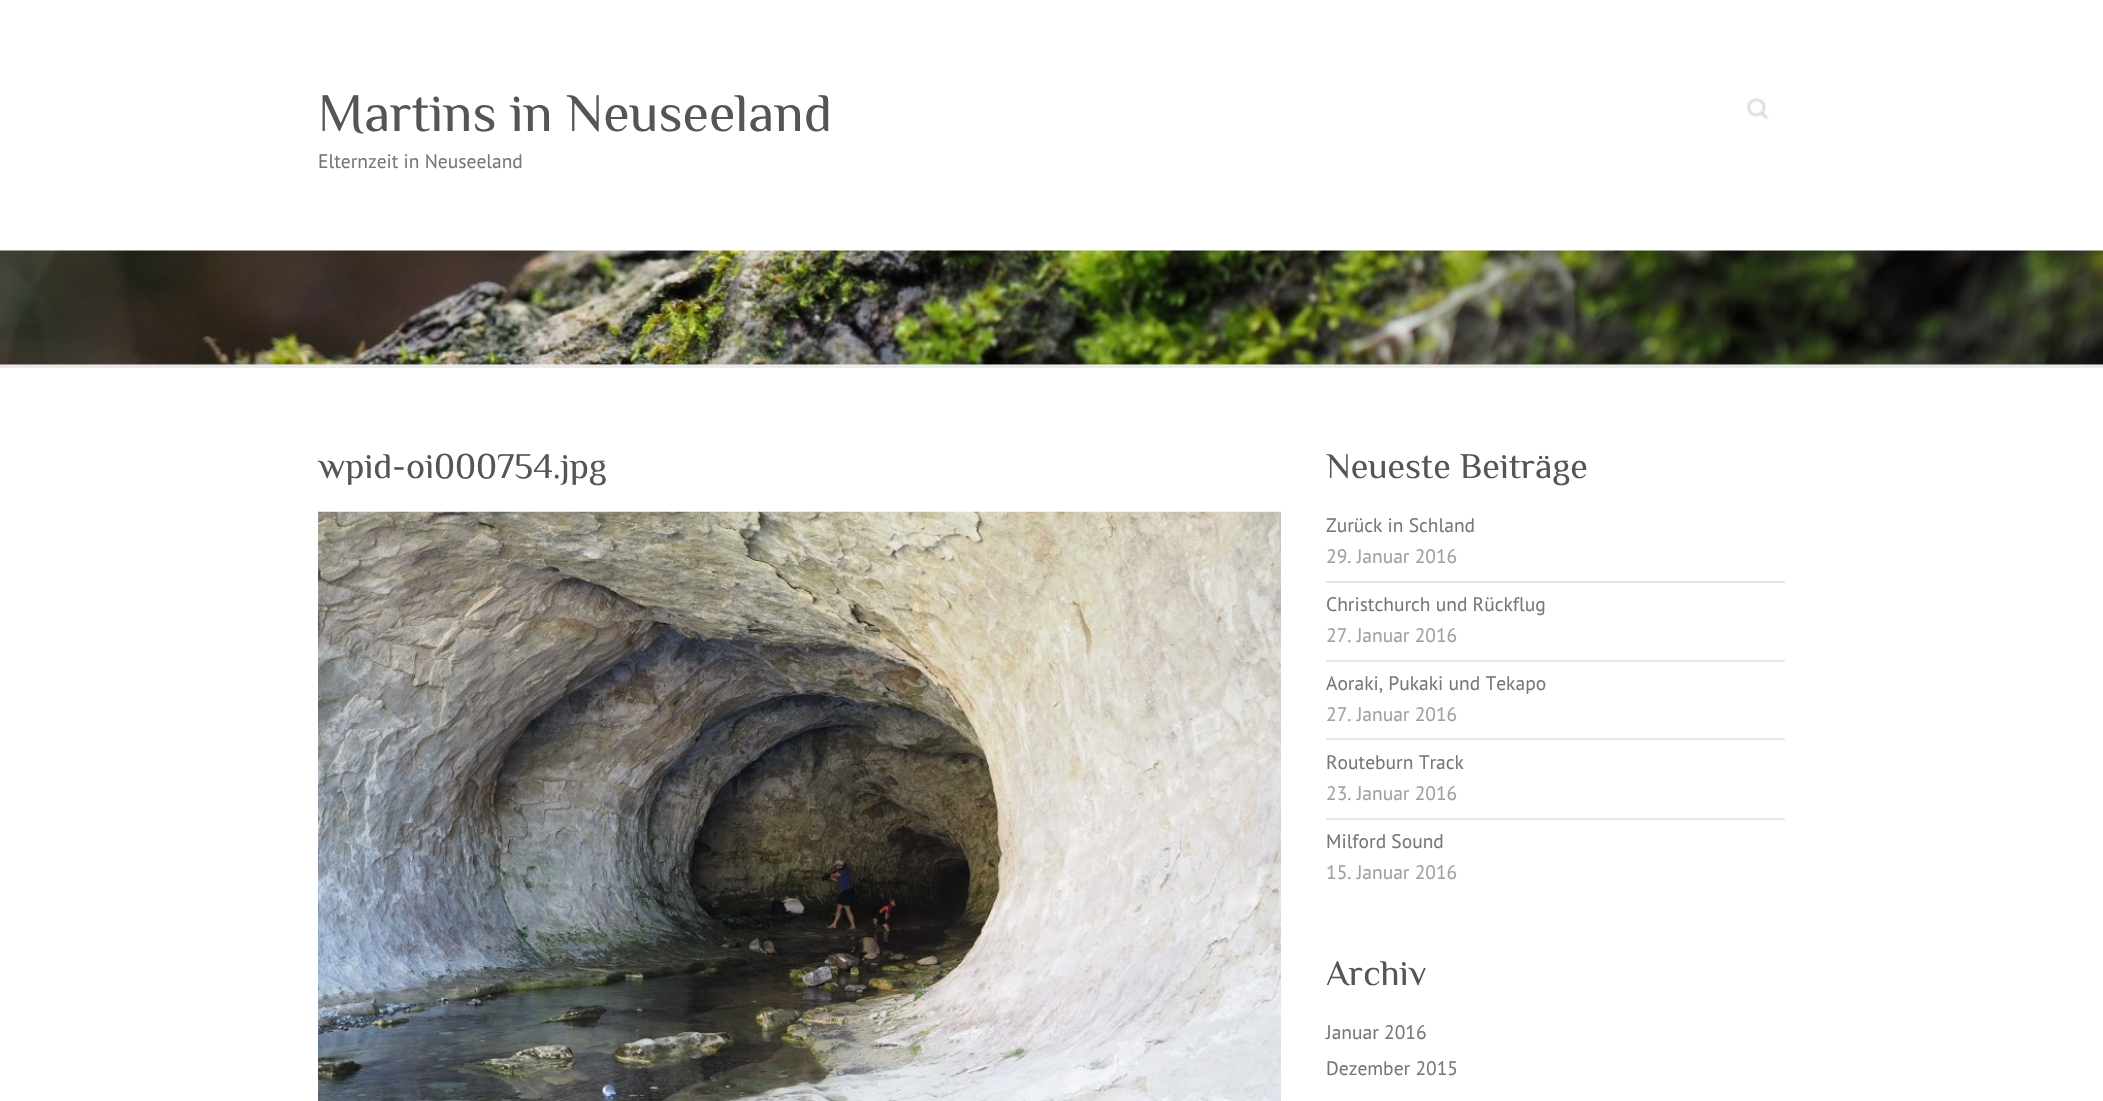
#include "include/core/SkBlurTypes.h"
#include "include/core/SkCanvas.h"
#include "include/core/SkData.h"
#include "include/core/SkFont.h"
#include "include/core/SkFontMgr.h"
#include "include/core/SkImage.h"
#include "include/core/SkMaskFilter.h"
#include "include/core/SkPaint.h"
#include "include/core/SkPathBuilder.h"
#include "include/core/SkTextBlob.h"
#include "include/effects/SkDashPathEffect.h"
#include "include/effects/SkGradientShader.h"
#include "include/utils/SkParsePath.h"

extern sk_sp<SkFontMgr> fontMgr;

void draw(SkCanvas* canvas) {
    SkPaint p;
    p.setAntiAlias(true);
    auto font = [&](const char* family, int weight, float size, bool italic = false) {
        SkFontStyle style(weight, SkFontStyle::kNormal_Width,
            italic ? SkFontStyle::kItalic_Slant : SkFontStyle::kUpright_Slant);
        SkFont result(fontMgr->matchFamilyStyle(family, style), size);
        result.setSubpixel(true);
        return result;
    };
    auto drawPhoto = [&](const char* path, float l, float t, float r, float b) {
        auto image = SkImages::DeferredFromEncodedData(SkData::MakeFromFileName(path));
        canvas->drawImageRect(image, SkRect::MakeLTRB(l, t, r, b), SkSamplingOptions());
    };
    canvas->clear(0xFFFFFFFF);
    auto font1 = font("Philosopher", 400, 54);
    p.setColor(0xFF555555);
    canvas->drawString("Martins in Neuseeland", 318, 131, font1, p);
    auto font2 = font("PT Sans", 400, 19.5f);
    p.setColor(0xFF777777);
    canvas->drawString("Elternzeit in Neuseeland", 318, 168, font2, p);
    drawPhoto("media/1.png", 1747, 97, 1769, 120);
    drawPhoto("media/2.png", 0, 250, 2103, 365);
    p.setColor(0xFFEAEAEA);
    canvas->drawRect(SkRect::MakeLTRB(0, 365, 2103, 368), p);
    auto font3 = font("Philosopher", 400, 36);
    p.setColor(0xFF555555);
    canvas->drawString("wpid-oi000754.jpg", 318, 478, font3, p);
    drawPhoto("media/3.png", 318, 511, 1281, 1101);
    canvas->drawString("Neueste Beiträge", 1326, 478, font3, p);
    p.setColor(0xFFE6E6E6);
    canvas->drawRect(SkRect::MakeLTRB(1326, 581, 1785, 583), p);
    p.setColor(0xFF777777);
    canvas->drawString("Zurück in Schland", 1326, 532, font2, p);
    p.setColor(0xFFA0A0A0);
    canvas->drawString("29. Januar 2016", 1326, 563, font2, p);
    p.setColor(0xFFE6E6E6);
    canvas->drawRect(SkRect::MakeLTRB(1326, 660, 1785, 662), p);
    p.setColor(0xFF777777);
    canvas->drawString("Christchurch und Rückflug", 1326, 611, font2, p);
    p.setColor(0xFFA0A0A0);
    canvas->drawString("27. Januar 2016", 1326, 642, font2, p);
    p.setColor(0xFFE6E6E6);
    canvas->drawRect(SkRect::MakeLTRB(1326, 738, 1785, 740), p);
    p.setColor(0xFF777777);
    canvas->drawString("Aoraki, Pukaki und Tekapo", 1326, 690, font2, p);
    p.setColor(0xFFA0A0A0);
    canvas->drawString("27. Januar 2016", 1326, 721, font2, p);
    p.setColor(0xFFE6E6E6);
    canvas->drawRect(SkRect::MakeLTRB(1326, 818, 1785, 820), p);
    p.setColor(0xFF777777);
    canvas->drawString("Routeburn Track", 1326, 769, font2, p);
    p.setColor(0xFFA0A0A0);
    canvas->drawString("23. Januar 2016", 1326, 800, font2, p);
    p.setColor(0xFF777777);
    canvas->drawString("Milford Sound", 1326, 848, font2, p);
    p.setColor(0xFFA0A0A0);
    canvas->drawString("15. Januar 2016", 1326, 879, font2, p);
    p.setColor(0xFF555555);
    canvas->drawString("Archiv", 1326, 985, font3, p);
    p.setColor(0xFF777777);
    canvas->drawString("Januar 2016", 1326, 1039, font2, p);
    canvas->drawString("Dezember 2015", 1326, 1075, font2, p);
}
